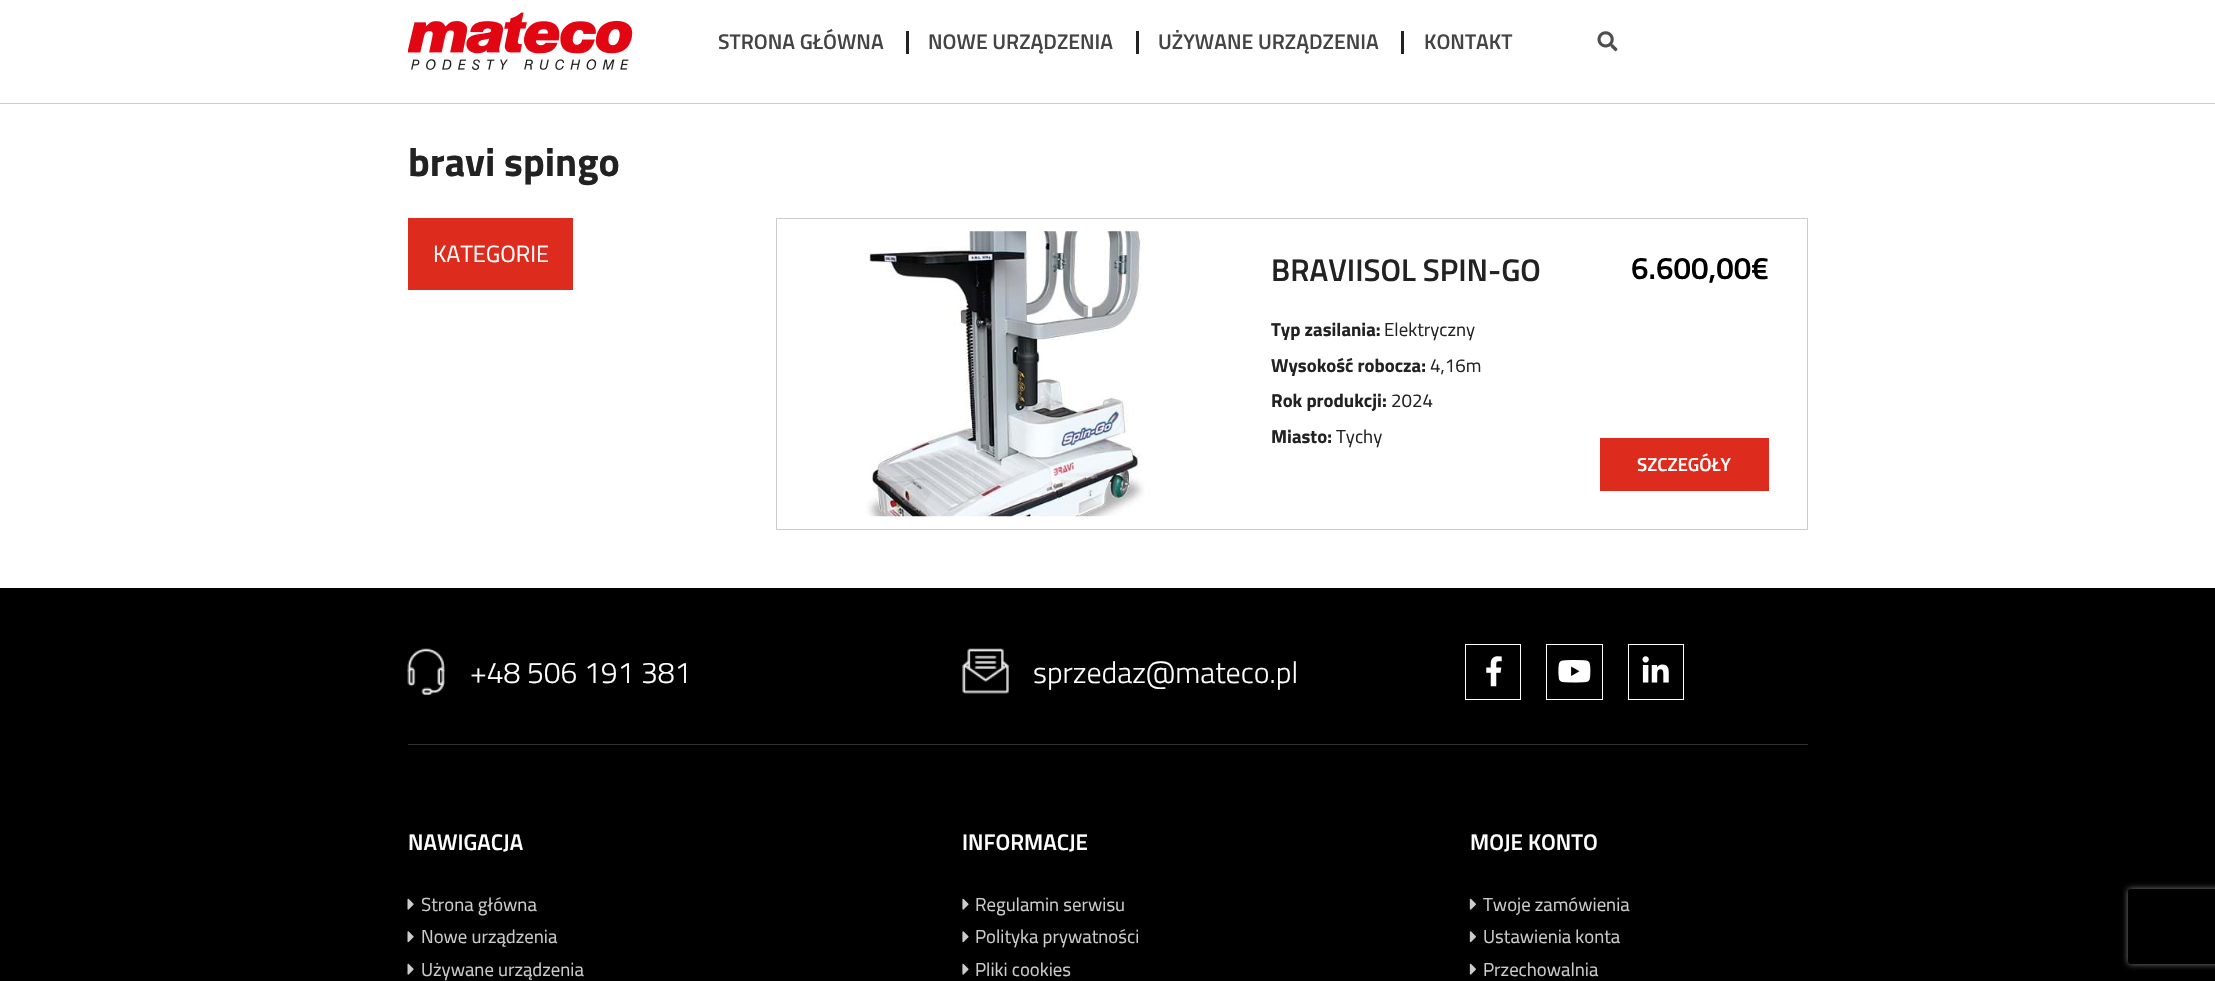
#include "include/core/SkBlurTypes.h"
#include "include/core/SkCanvas.h"
#include "include/core/SkData.h"
#include "include/core/SkFont.h"
#include "include/core/SkFontMgr.h"
#include "include/core/SkImage.h"
#include "include/core/SkMaskFilter.h"
#include "include/core/SkPaint.h"
#include "include/core/SkPathBuilder.h"
#include "include/core/SkTextBlob.h"
#include "include/effects/SkDashPathEffect.h"
#include "include/effects/SkGradientShader.h"
#include "include/utils/SkParsePath.h"

extern sk_sp<SkFontMgr> fontMgr;

void draw(SkCanvas* canvas) {
    SkPaint p;
    p.setAntiAlias(true);
    auto font = [&](const char* family, int weight, float size, bool italic = false) {
        SkFontStyle style(weight, SkFontStyle::kNormal_Width,
            italic ? SkFontStyle::kItalic_Slant : SkFontStyle::kUpright_Slant);
        SkFont result(fontMgr->matchFamilyStyle(family, style), size);
        result.setSubpixel(true);
        return result;
    };
    auto drawPhoto = [&](const char* path, float l, float t, float r, float b) {
        auto image = SkImages::DeferredFromEncodedData(SkData::MakeFromFileName(path));
        canvas->drawImageRect(image, SkRect::MakeLTRB(l, t, r, b), SkSamplingOptions());
    };
    canvas->clear(0xFFFFFFFF);
    p.setColor(0xFFCCCCCC);
    canvas->drawRect(SkRect::MakeLTRB(0, 103, 2215, 104), p);
    drawPhoto("media/1.png", 408, 12, 633, 70);
    auto font1 = font("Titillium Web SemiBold", 600, 21.25f);
    p.setColor(0xFF444444);
    canvas->drawString("STRONA GŁÓWNA", 718, 49, font1, p);
    p.setColor(0xFF222222);
    canvas->drawRect(SkRect::MakeLTRB(906, 31, 909, 54), p);
    p.setColor(0xFF444444);
    canvas->drawString("NOWE URZĄDZENIA", 928, 49, font1, p);
    p.setColor(0xFF222222);
    canvas->drawRect(SkRect::MakeLTRB(1136, 31, 1139, 54), p);
    p.setColor(0xFF444444);
    canvas->drawString("UŻYWANE URZĄDZENIA", 1158, 49, font1, p);
    p.setColor(0xFF222222);
    canvas->drawRect(SkRect::MakeLTRB(1401, 31, 1404, 54), p);
    p.setColor(0xFF444444);
    canvas->drawString("KONTAKT", 1424, 49, font1, p);
    drawPhoto("media/2.png", 1597, 31, 1618, 52);
    auto font2 = font("Titillium Web", 700, 40);
    p.setColor(0xFF222222);
    canvas->drawString("bravi spingo", 408, 176, font2, p);
    p.setColor(0xFFDD2C1D);
    canvas->drawRect(SkRect::MakeLTRB(408, 218, 573, 290), p);
    auto font3 = font("Titillium Web", 400, 23.5f);
    p.setColor(0xFFFFFFFF);
    canvas->drawString("KATEGORIE", 433, 262, font3, p);
    p.setStyle(SkPaint::kStroke_Style);
    p.setStrokeWidth(1);
    p.setColor(0xFFCCCCCC);
    canvas->drawRect(SkRect::MakeLTRB(776.5f, 218.5f, 1807.5f, 529.5f), p);
    drawPhoto("media/3.png", 865, 231, 1145, 517);
    auto font4 = font("Titillium Web SemiBold", 600, 31.25f);
    p.setStyle(SkPaint::kFill_Style);
    p.setColor(0xFF222222);
    canvas->drawString("BRAVIISOL SPIN-GO", 1271, 281, font4, p);
    auto font5 = font("Titillium Web", 700, 18.75f);
    canvas->drawString("Typ zasilania:", 1271, 336, font5, p);
    auto font6 = font("Titillium Web", 400, 18.75f);
    canvas->drawString("Elektryczny", 1384, 336, font6, p);
    canvas->drawString("Wysokość robocza:", 1271, 372, font5, p);
    canvas->drawString("4,16m", 1430, 372, font6, p);
    canvas->drawString("Rok produkcji:", 1271, 407, font5, p);
    canvas->drawString("2024", 1391, 407, font6, p);
    canvas->drawString("Miasto:", 1271, 443, font5, p);
    canvas->drawString("Tychy", 1336, 443, font6, p);
    p.setColor(0xFF000000);
    canvas->drawString("6.600,00€", 1631, 279, font4, p);
    p.setColor(0xFFDD2C1D);
    canvas->drawRect(SkRect::MakeLTRB(1600, 438, 1769, 491), p);
    auto font7 = font("Titillium Web SemiBold", 600, 18.75f);
    p.setColor(0xFFFFFFFF);
    canvas->drawString("SZCZEGÓŁY", 1637, 471, font7, p);
    p.setColor(0xFF000000);
    canvas->drawRect(SkRect::MakeLTRB(0, 588, 2215, 981), p);
    drawPhoto("media/4.png", 407, 648, 445, 695);
    auto font8 = font("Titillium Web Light", 300, 30);
    p.setColor(0xFFFFFFFF);
    canvas->drawString("+48 506 191 381", 470, 683, font8, p);
    drawPhoto("media/5.png", 962, 648, 1009, 694);
    canvas->drawString("sprzedaz@mateco.pl", 1033, 683, font8, p);
    p.setStyle(SkPaint::kStroke_Style);
    canvas->drawRect(SkRect::MakeLTRB(1465.5f, 644.5f, 1520.5f, 699.5f), p);
    drawPhoto("media/6.png", 1486, 656, 1502, 687);
    canvas->drawRect(SkRect::MakeLTRB(1546.5f, 644.5f, 1602.5f, 699.5f), p);
    drawPhoto("media/7.png", 1558, 660, 1591, 683);
    canvas->drawRect(SkRect::MakeLTRB(1628.5f, 644.5f, 1683.5f, 699.5f), p);
    drawPhoto("media/8.png", 1642, 656, 1669, 683);
    p.setStyle(SkPaint::kFill_Style);
    p.setColor(0xFF333333);
    canvas->drawRect(SkRect::MakeLTRB(408, 744, 1808, 745), p);
    auto font9 = font("Titillium Web SemiBold", 600, 22.5f);
    p.setColor(0xFFFFFFFF);
    canvas->drawString("NAWIGACJA", 408, 850, font9, p);
    drawPhoto("media/9.png", 407, 898, 414, 910);
    p.setColor(0xFFCCCCCC);
    canvas->drawString("Strona główna", 421, 911, font6, p);
    drawPhoto("media/10.png", 407, 931, 414, 943);
    canvas->drawString("Nowe urządzenia", 421, 943, font6, p);
    drawPhoto("media/9.png", 407, 963, 414, 975);
    canvas->drawString("Używane urządzenia", 421, 976, font6, p);
    p.setColor(0xFFFFFFFF);
    canvas->drawString("INFORMACJE", 962, 850, font9, p);
    drawPhoto("media/11.png", 962, 898, 969, 910);
    p.setColor(0xFFCCCCCC);
    canvas->drawString("Regulamin serwisu", 975, 911, font6, p);
    drawPhoto("media/12.png", 962, 931, 969, 943);
    canvas->drawString("Polityka prywatności", 975, 943, font6, p);
    drawPhoto("media/11.png", 962, 963, 969, 975);
    canvas->drawString("Pliki cookies", 975, 976, font6, p);
    p.setColor(0xFFFFFFFF);
    canvas->drawString("MOJE KONTO", 1470, 850, font9, p);
    drawPhoto("media/13.png", 1469, 898, 1476, 910);
    p.setColor(0xFFCCCCCC);
    canvas->drawString("Twoje zamówienia", 1483, 911, font6, p);
    drawPhoto("media/14.png", 1469, 931, 1476, 943);
    canvas->drawString("Ustawienia konta", 1483, 943, font6, p);
    drawPhoto("media/13.png", 1469, 963, 1476, 975);
    canvas->drawString("Przechowalnia", 1483, 976, font6, p);
    canvas->save();
    canvas->clipPath(SkPathBuilder(SkPathFillType::kEvenOdd).moveTo(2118, 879).lineTo(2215, 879).lineTo(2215, 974).lineTo(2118, 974).close().moveTo(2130.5f, 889).lineTo(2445.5f, 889).cubicTo(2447, 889, 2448, 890, 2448, 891.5f).lineTo(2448, 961.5f).cubicTo(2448, 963, 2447, 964, 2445.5f, 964).lineTo(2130.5f, 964).cubicTo(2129, 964, 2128, 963, 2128, 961.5f).lineTo(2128, 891.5f).cubicTo(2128, 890, 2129, 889, 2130.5f, 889).close().detach(), true);
    p.setColor(0xFF808080);
    p.setMaskFilter(SkMaskFilter::MakeBlur(kNormal_SkBlurStyle, 3));
    canvas->drawRoundRect(SkRect::MakeLTRB(2128, 889, 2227, 964), 2.5f, 2.5f, p);
    p.setMaskFilter(nullptr);
    canvas->restore();
}
